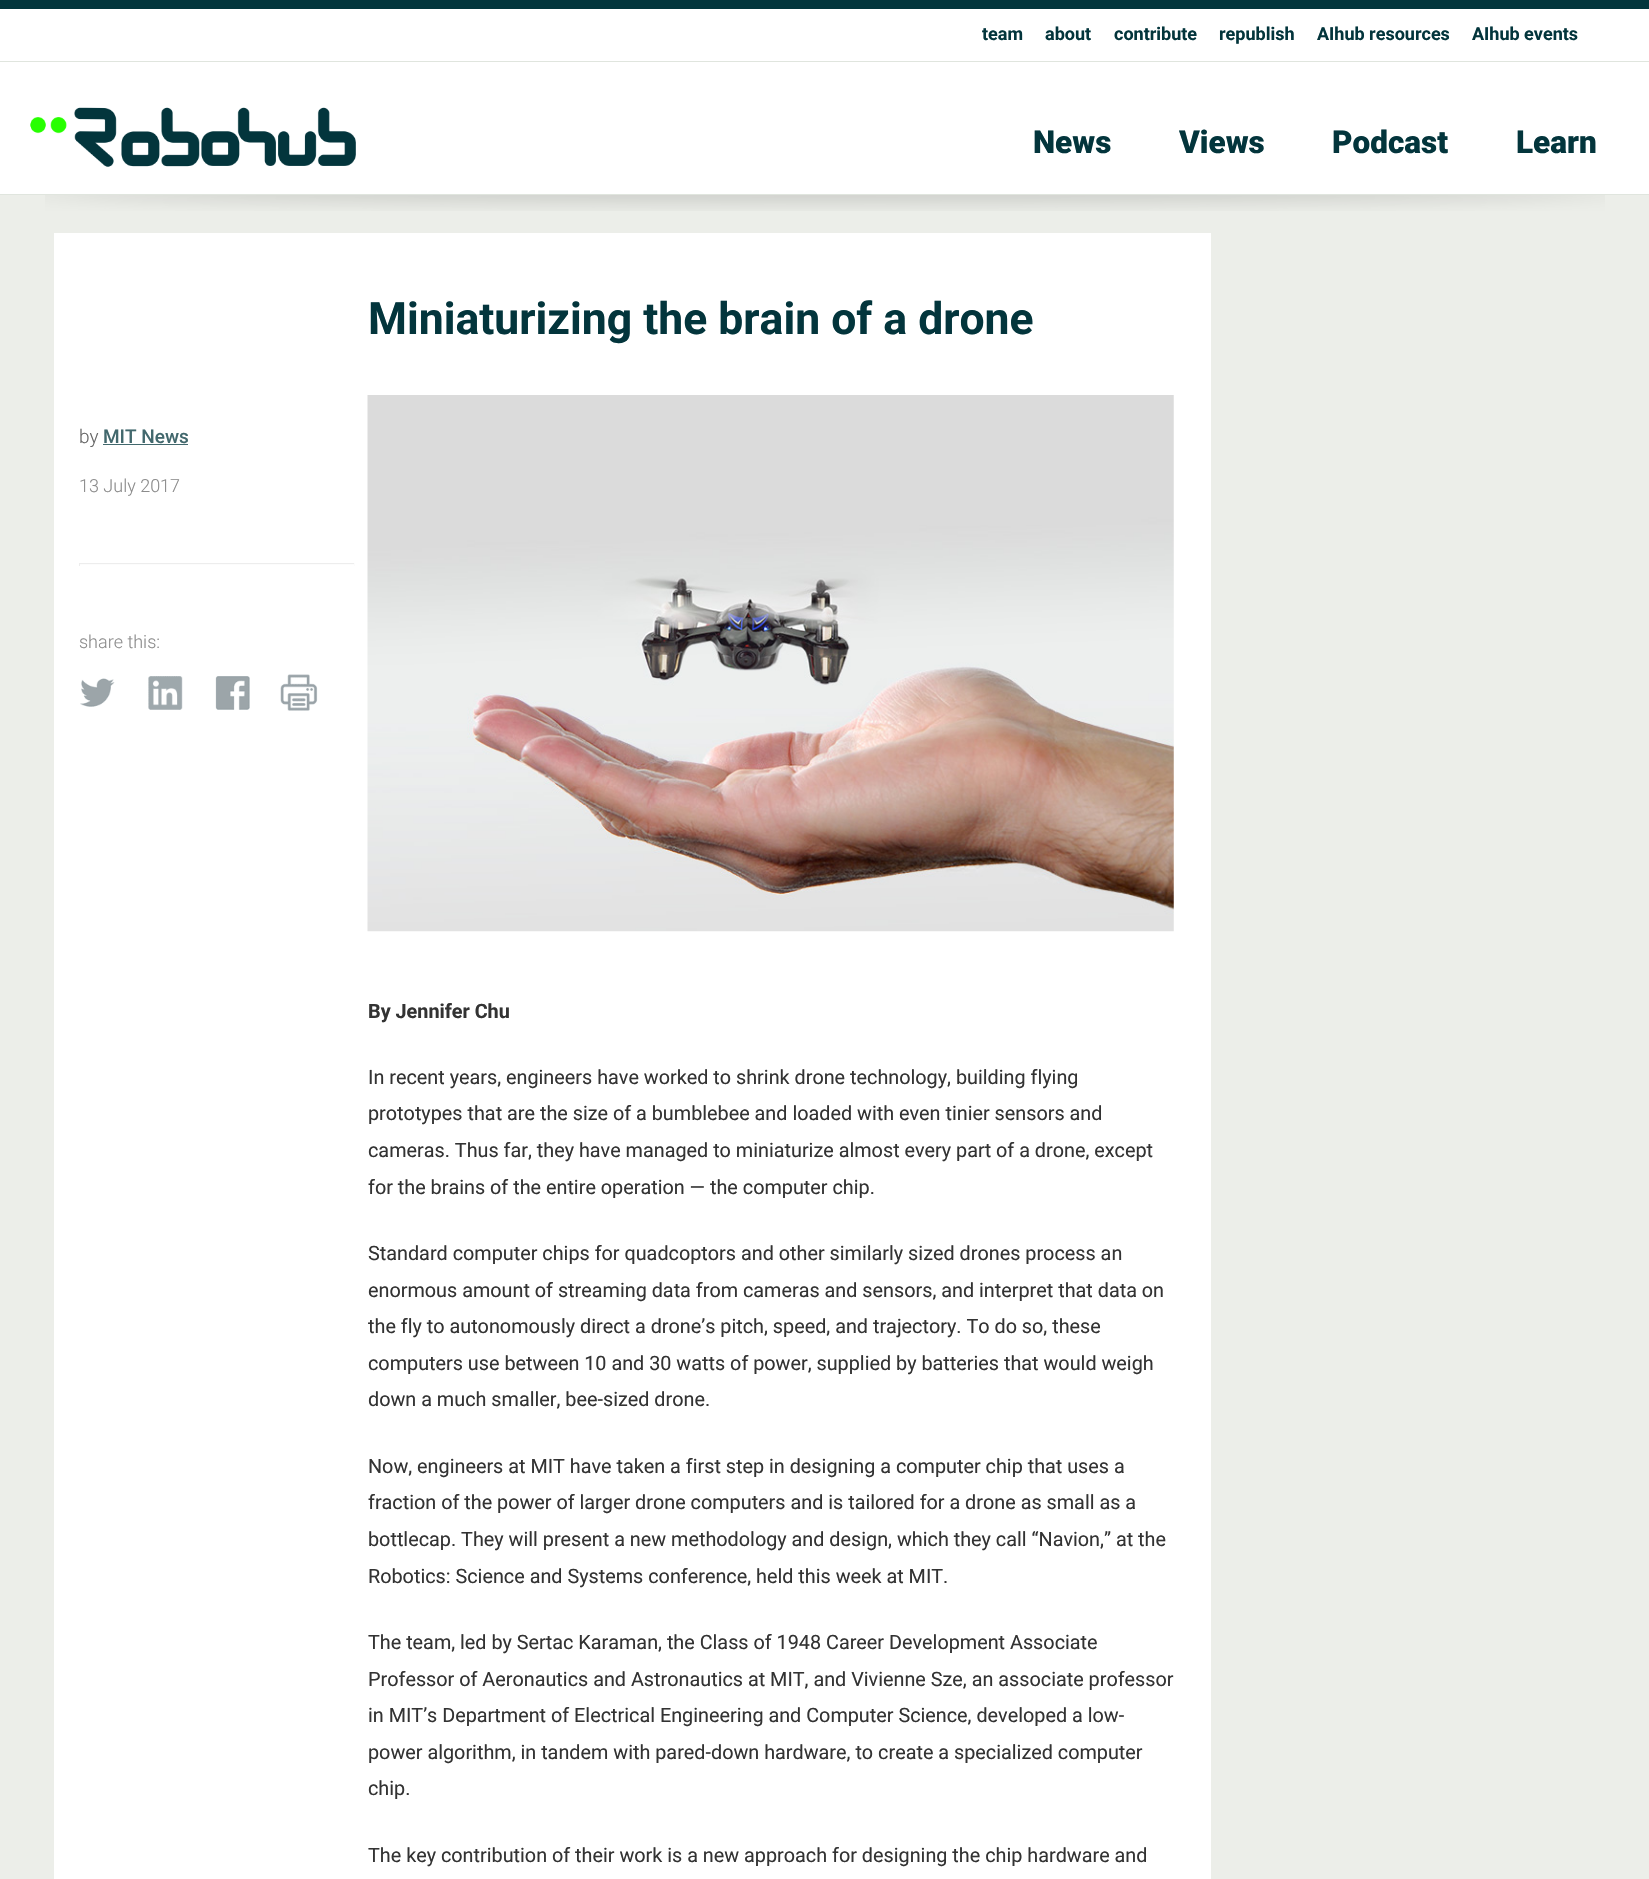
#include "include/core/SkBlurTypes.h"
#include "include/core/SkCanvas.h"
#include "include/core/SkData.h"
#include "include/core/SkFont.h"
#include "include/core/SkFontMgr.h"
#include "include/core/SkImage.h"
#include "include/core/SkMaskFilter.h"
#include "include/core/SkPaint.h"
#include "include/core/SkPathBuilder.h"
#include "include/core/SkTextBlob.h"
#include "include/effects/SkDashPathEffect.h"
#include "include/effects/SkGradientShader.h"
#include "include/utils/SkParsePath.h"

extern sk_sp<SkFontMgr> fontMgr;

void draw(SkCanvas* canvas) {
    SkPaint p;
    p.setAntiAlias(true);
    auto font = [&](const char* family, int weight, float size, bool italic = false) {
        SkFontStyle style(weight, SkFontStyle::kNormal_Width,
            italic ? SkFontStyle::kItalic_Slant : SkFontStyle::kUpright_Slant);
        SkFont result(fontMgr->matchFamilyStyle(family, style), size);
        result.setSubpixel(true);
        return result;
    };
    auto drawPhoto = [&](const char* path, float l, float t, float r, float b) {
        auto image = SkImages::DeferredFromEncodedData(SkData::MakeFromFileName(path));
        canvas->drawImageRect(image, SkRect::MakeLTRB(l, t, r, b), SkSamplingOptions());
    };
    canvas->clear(0xFFECEEE9);
    {
        const struct { float l, t, r, b; SkColor color; } items[] = {
            {0, 9, 1649, 194, 0xFFFFFFFF},
            {0, 0, 1649, 9, 0xFF03353C},
            {0, 194, 1649, 195, 0xFFE0E5DE},
            {0, 61, 1649, 62, 0xFFE0E5DE},
        };
        for (auto [l, t, r, b, color] : items) {
            p.setColor(color);
            canvas->drawRect(SkRect::MakeLTRB(l, t, r, b), p);
        }
    }
    auto font1 = font("Roboto", 700, 18);
    p.setColor(0xFF03353C);
    {
        const struct { const char* s; float x, y; } items[] = {
            {"team", 982, 40},
            {"about", 1045, 40},
            {"contribute", 1114, 40},
            {"republish", 1219, 40},
            {"AIhub resources", 1317, 40},
            {"AIhub events", 1472, 40},
        };
        for (auto [s, x, y] : items) {
            canvas->drawString(s, x, y, font1, p);
        }
    }
    drawPhoto("media/1.png", 30, 107, 356, 167);
    auto font2 = font("Roboto", 900, 31.5f);
    {
        const struct { const char* s; float x, y; } items[] = {
            {"News", 1033, 153},
            {"Views", 1179, 153},
            {"Podcast", 1332, 153},
            {"Learn", 1516, 153},
        };
        for (auto [s, x, y] : items) {
            canvas->drawString(s, x, y, font2, p);
        }
    }
    drawPhoto("media/2.png", 45, 195, 1605, 211);
    p.setColor(0xFFFFFFFF);
    canvas->drawRect(SkRect::MakeLTRB(54, 233, 1211, 1879), p);
    auto font3 = font("Roboto", 700, 44.5f);
    p.setColor(0xFF03353C);
    canvas->drawString("Miniaturizing the brain of a drone", 368, 334, font3, p);
    auto font4 = font("Roboto", 300, 19);
    p.setColor(0xFF666666);
    canvas->drawString("by", 79, 443, font4, p);
    auto font5 = font("Roboto", 500, 19);
    p.setColor(0xFF42686D);
    canvas->drawString("MIT News", 103, 443, font5, p);
    canvas->drawRect(SkRect::MakeLTRB(103, 444, 188, 445), p);
    auto font6 = font("Roboto", 300, 18);
    p.setColor(0xFF8C8C8C);
    canvas->drawString("13 July 2017", 79, 492, font6, p);
    {
        const struct { float l, t, r, b; SkColor color; } items[] = {
            {79, 563, 355, 564, 0xFFEDEDED},
            {354, 563, 355, 566, 0xFFFCFCFC},
            {79, 564, 355, 565, 0xFFFCFCFC},
            {79, 563, 80, 566, 0xFFEDEDED},
        };
        for (auto [l, t, r, b, color] : items) {
            p.setColor(color);
            canvas->drawRect(SkRect::MakeLTRB(l, t, r, b), p);
        }
    }
    p.setColor(0xFF8C8C8C);
    canvas->drawString("share this:", 79, 648, font6, p);
    drawPhoto("media/3.png", 80, 678, 115, 707);
    drawPhoto("media/4.png", 148, 676, 183, 710);
    drawPhoto("media/5.png", 215, 676, 250, 710);
    drawPhoto("media/6.png", 280, 674, 318, 711);
    drawPhoto("media/7.png", 367, 395, 1174, 932);
    auto font7 = font("Roboto", 700, 19.8f);
    p.setColor(0xFF333333);
    canvas->drawString("By Jennifer Chu", 368, 1018, font7, p);
    auto font8 = font("Roboto", 400, 19.8f);
    {
        const struct { const char* s; float x, y; } items[] = {
            {"In recent years, engineers have worked to shrink drone technology, building flying", 368, 1084},
            {"prototypes that are the size of a bumblebee and loaded with even tinier sensors and", 368, 1120},
            {"cameras. Thus far, they have managed to miniaturize almost every part of a drone, except", 368, 1157},
            {"for the brains of the entire operation — the computer chip.", 368, 1194},
            {"Standard computer chips for quadcoptors and other similarly sized drones process an", 368, 1260},
            {"enormous amount of streaming data from cameras and sensors, and interpret that data on", 368, 1297},
            {"the fly to autonomously direct a drone’s pitch, speed, and trajectory. To do so, these", 368, 1333},
            {"computers use between 10 and 30 watts of power, supplied by batteries that would weigh", 368, 1370},
            {"down a much smaller, bee-sized drone.", 368, 1406},
            {"Now, engineers at MIT have taken a first step in designing a computer chip that uses a", 368, 1473},
            {"fraction of the power of larger drone computers and is tailored for a drone as small as a", 368, 1509},
            {"bottlecap. They will present a new methodology and design, which they call “Navion,” at the", 368, 1546},
            {"Robotics: Science and Systems conference, held this week at MIT.", 368, 1583},
            {"The team, led by Sertac Karaman, the Class of 1948 Career Development Associate", 368, 1649},
            {"Professor of Aeronautics and Astronautics at MIT, and Vivienne Sze, an associate professor", 368, 1686},
            {"in MIT’s Department of Electrical Engineering and Computer Science, developed a low-", 368, 1722},
            {"power algorithm, in tandem with pared-down hardware, to create a specialized computer", 368, 1759},
            {"chip.", 368, 1795},
            {"The key contribution of their work is a new approach for designing the chip hardware and", 368, 1862},
        };
        for (auto [s, x, y] : items) {
            canvas->drawString(s, x, y, font8, p);
        }
    }
}
